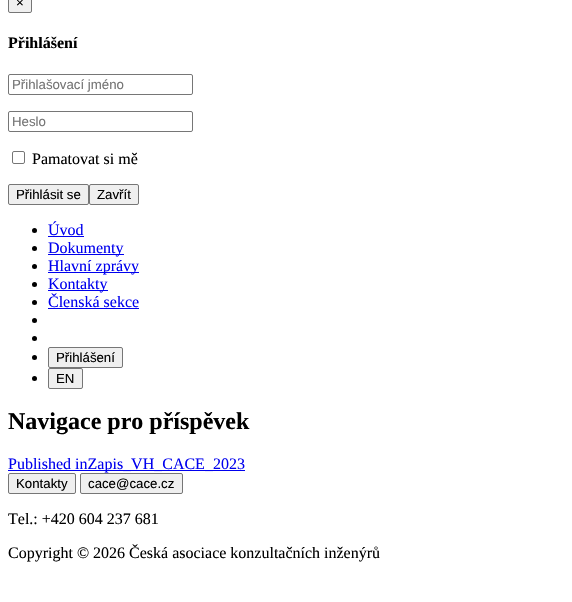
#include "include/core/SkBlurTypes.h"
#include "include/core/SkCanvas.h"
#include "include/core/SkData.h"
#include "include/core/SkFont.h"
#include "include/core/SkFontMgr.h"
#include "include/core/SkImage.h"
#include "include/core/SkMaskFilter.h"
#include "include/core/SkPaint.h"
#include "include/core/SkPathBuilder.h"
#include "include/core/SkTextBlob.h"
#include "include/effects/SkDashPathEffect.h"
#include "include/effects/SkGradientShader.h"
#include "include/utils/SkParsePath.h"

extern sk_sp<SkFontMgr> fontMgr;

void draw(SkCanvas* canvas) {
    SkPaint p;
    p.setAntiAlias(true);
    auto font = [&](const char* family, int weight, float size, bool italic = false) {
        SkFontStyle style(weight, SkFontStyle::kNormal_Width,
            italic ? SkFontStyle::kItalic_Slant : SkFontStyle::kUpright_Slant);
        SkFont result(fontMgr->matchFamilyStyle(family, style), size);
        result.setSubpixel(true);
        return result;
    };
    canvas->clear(0xFFFFFFFF);
    p.setColor(0xFFEFEFEF);
    canvas->drawRoundRect(SkRect::MakeLTRB(8.5f, -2.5f, 31.5f, 12.5f), 1.5f, 1.5f, p);
    p.setStyle(SkPaint::kStroke_Style);
    p.setStrokeWidth(1);
    p.setColor(0xFF767676);
    canvas->drawRoundRect(SkRect::MakeLTRB(8.5f, -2.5f, 31.5f, 12.5f), 1.5f, 1.5f, p);
    auto font1 = font("Liberation Sans", 400, 13.25f);
    p.setStyle(SkPaint::kFill_Style);
    p.setColor(0xFF000000);
    canvas->drawString("×", 16, 7, font1, p);
    auto font2 = font("Liberation Serif", 700, 16);
    canvas->drawString("Přihlášení", 8, 48, font2, p);
    p.setStyle(SkPaint::kStroke_Style);
    p.setColor(0xFF767676);
    canvas->drawRoundRect(SkRect::MakeLTRB(8.5f, 74.5f, 192.5f, 94.5f), 1.5f, 1.5f, p);
    p.setStyle(SkPaint::kFill_Style);
    p.setColor(0xFF757575);
    canvas->drawString("Přihlašovací jméno", 12, 89, font1, p);
    p.setStyle(SkPaint::kStroke_Style);
    p.setColor(0xFF767676);
    canvas->drawRoundRect(SkRect::MakeLTRB(8.5f, 111.5f, 192.5f, 131.5f), 1.5f, 1.5f, p);
    p.setStyle(SkPaint::kFill_Style);
    p.setColor(0xFF757575);
    canvas->drawString("Heslo", 12, 126, font1, p);
    p.setStyle(SkPaint::kStroke_Style);
    p.setColor(0xFF767676);
    canvas->drawRoundRect(SkRect::MakeLTRB(12.5f, 151.5f, 24.5f, 163.5f), 1.5f, 1.5f, p);
    auto font3 = font("Liberation Serif", 400, 16);
    p.setStyle(SkPaint::kFill_Style);
    p.setColor(0xFF000000);
    canvas->drawString("Pamatovat si mě", 32, 164, font3, p);
    p.setColor(0xFFEFEFEF);
    canvas->drawRoundRect(SkRect::MakeLTRB(8.5f, 184.5f, 88.5f, 204.5f), 1.5f, 1.5f, p);
    p.setStyle(SkPaint::kStroke_Style);
    p.setColor(0xFF767676);
    canvas->drawRoundRect(SkRect::MakeLTRB(8.5f, 184.5f, 88.5f, 204.5f), 1.5f, 1.5f, p);
    p.setStyle(SkPaint::kFill_Style);
    p.setColor(0xFF000000);
    canvas->drawString("Přihlásit se", 16, 199, font1, p);
    p.setColor(0xFFEFEFEF);
    canvas->drawRoundRect(SkRect::MakeLTRB(89.5f, 184.5f, 138.5f, 204.5f), 1.5f, 1.5f, p);
    p.setStyle(SkPaint::kStroke_Style);
    p.setColor(0xFF767676);
    canvas->drawRoundRect(SkRect::MakeLTRB(89.5f, 184.5f, 138.5f, 204.5f), 1.5f, 1.5f, p);
    p.setStyle(SkPaint::kFill_Style);
    p.setColor(0xFF000000);
    canvas->drawString("Zavřít", 97, 199, font1, p);
    canvas->drawCircle(34.5f, 230.5f, 2.5f, p);
    p.setColor(0xFF0000EE);
    canvas->drawString("Úvod", 48, 235, font3, p);
    canvas->drawRect(SkRect::MakeLTRB(48, 236, 84, 237), p);
    p.setColor(0xFF000000);
    canvas->drawCircle(34.5f, 248.5f, 2.5f, p);
    p.setColor(0xFF0000EE);
    canvas->drawRect(SkRect::MakeLTRB(48, 254, 124, 255), p);
    canvas->drawString("Dokumenty", 48, 253, font3, p);
    p.setColor(0xFF000000);
    canvas->drawCircle(34.5f, 266.5f, 2.5f, p);
    p.setColor(0xFF0000EE);
    canvas->drawRect(SkRect::MakeLTRB(48, 272, 139, 273), p);
    canvas->drawString("Hlavní zprávy", 48, 271, font3, p);
    p.setColor(0xFF000000);
    canvas->drawCircle(34.5f, 284.5f, 2.5f, p);
    p.setColor(0xFF0000EE);
    canvas->drawRect(SkRect::MakeLTRB(48, 290, 108, 291), p);
    canvas->drawString("Kontakty", 48, 289, font3, p);
    p.setColor(0xFF000000);
    canvas->drawCircle(34.5f, 302.5f, 2.5f, p);
    p.setColor(0xFF0000EE);
    canvas->drawString("Členská sekce", 48, 307, font3, p);
    canvas->drawRect(SkRect::MakeLTRB(48, 308, 139, 309), p);
    p.setColor(0xFF000000);
    canvas->drawCircle(34.5f, 320.5f, 2.5f, p);
    canvas->drawCircle(34.5f, 338.5f, 2.5f, p);
    canvas->drawCircle(34.5f, 357.5f, 2.5f, p);
    p.setColor(0xFFEFEFEF);
    canvas->drawRoundRect(SkRect::MakeLTRB(48.5f, 347.5f, 122.5f, 367.5f), 1.5f, 1.5f, p);
    p.setStyle(SkPaint::kStroke_Style);
    p.setColor(0xFF767676);
    canvas->drawRoundRect(SkRect::MakeLTRB(48.5f, 347.5f, 122.5f, 367.5f), 1.5f, 1.5f, p);
    p.setStyle(SkPaint::kFill_Style);
    p.setColor(0xFF000000);
    canvas->drawString("Přihlášení", 56, 362, font1, p);
    canvas->drawCircle(34.5f, 378.5f, 2.5f, p);
    p.setColor(0xFFEFEFEF);
    canvas->drawRoundRect(SkRect::MakeLTRB(48.5f, 368.5f, 82.5f, 388.5f), 1.5f, 1.5f, p);
    p.setStyle(SkPaint::kStroke_Style);
    p.setColor(0xFF767676);
    canvas->drawRoundRect(SkRect::MakeLTRB(48.5f, 368.5f, 82.5f, 388.5f), 1.5f, 1.5f, p);
    p.setStyle(SkPaint::kFill_Style);
    p.setColor(0xFF000000);
    canvas->drawString("EN", 56, 383, font1, p);
    auto font4 = font("Liberation Serif", 700, 24);
    canvas->drawString("Navigace pro příspěvek", 8, 429, font4, p);
    p.setColor(0xFF0000EE);
    canvas->drawRect(SkRect::MakeLTRB(8, 470, 245, 471), p);
    canvas->drawString("Published inZapis_VH_CACE_2023", 8, 469, font3, p);
    p.setColor(0xFFEFEFEF);
    canvas->drawRoundRect(SkRect::MakeLTRB(8.5f, 473.5f, 75.5f, 493.5f), 1.5f, 1.5f, p);
    p.setStyle(SkPaint::kStroke_Style);
    p.setColor(0xFF767676);
    canvas->drawRoundRect(SkRect::MakeLTRB(8.5f, 473.5f, 75.5f, 493.5f), 1.5f, 1.5f, p);
    p.setStyle(SkPaint::kFill_Style);
    p.setColor(0xFF000000);
    canvas->drawString("Kontakty", 16, 488, font1, p);
    p.setColor(0xFFEFEFEF);
    canvas->drawRoundRect(SkRect::MakeLTRB(80.5f, 473.5f, 182.5f, 493.5f), 1.5f, 1.5f, p);
    p.setStyle(SkPaint::kStroke_Style);
    p.setColor(0xFF767676);
    canvas->drawRoundRect(SkRect::MakeLTRB(80.5f, 473.5f, 182.5f, 493.5f), 1.5f, 1.5f, p);
    p.setStyle(SkPaint::kFill_Style);
    p.setColor(0xFF000000);
    canvas->drawString("cace@cace.cz", 88, 488, font1, p);
    canvas->drawString("Tel.: +420 604 237 681", 8, 524, font3, p);
    canvas->drawString("Copyright © 2026 Česká asociace konzultačních inženýrů", 8, 558, font3, p);
}
